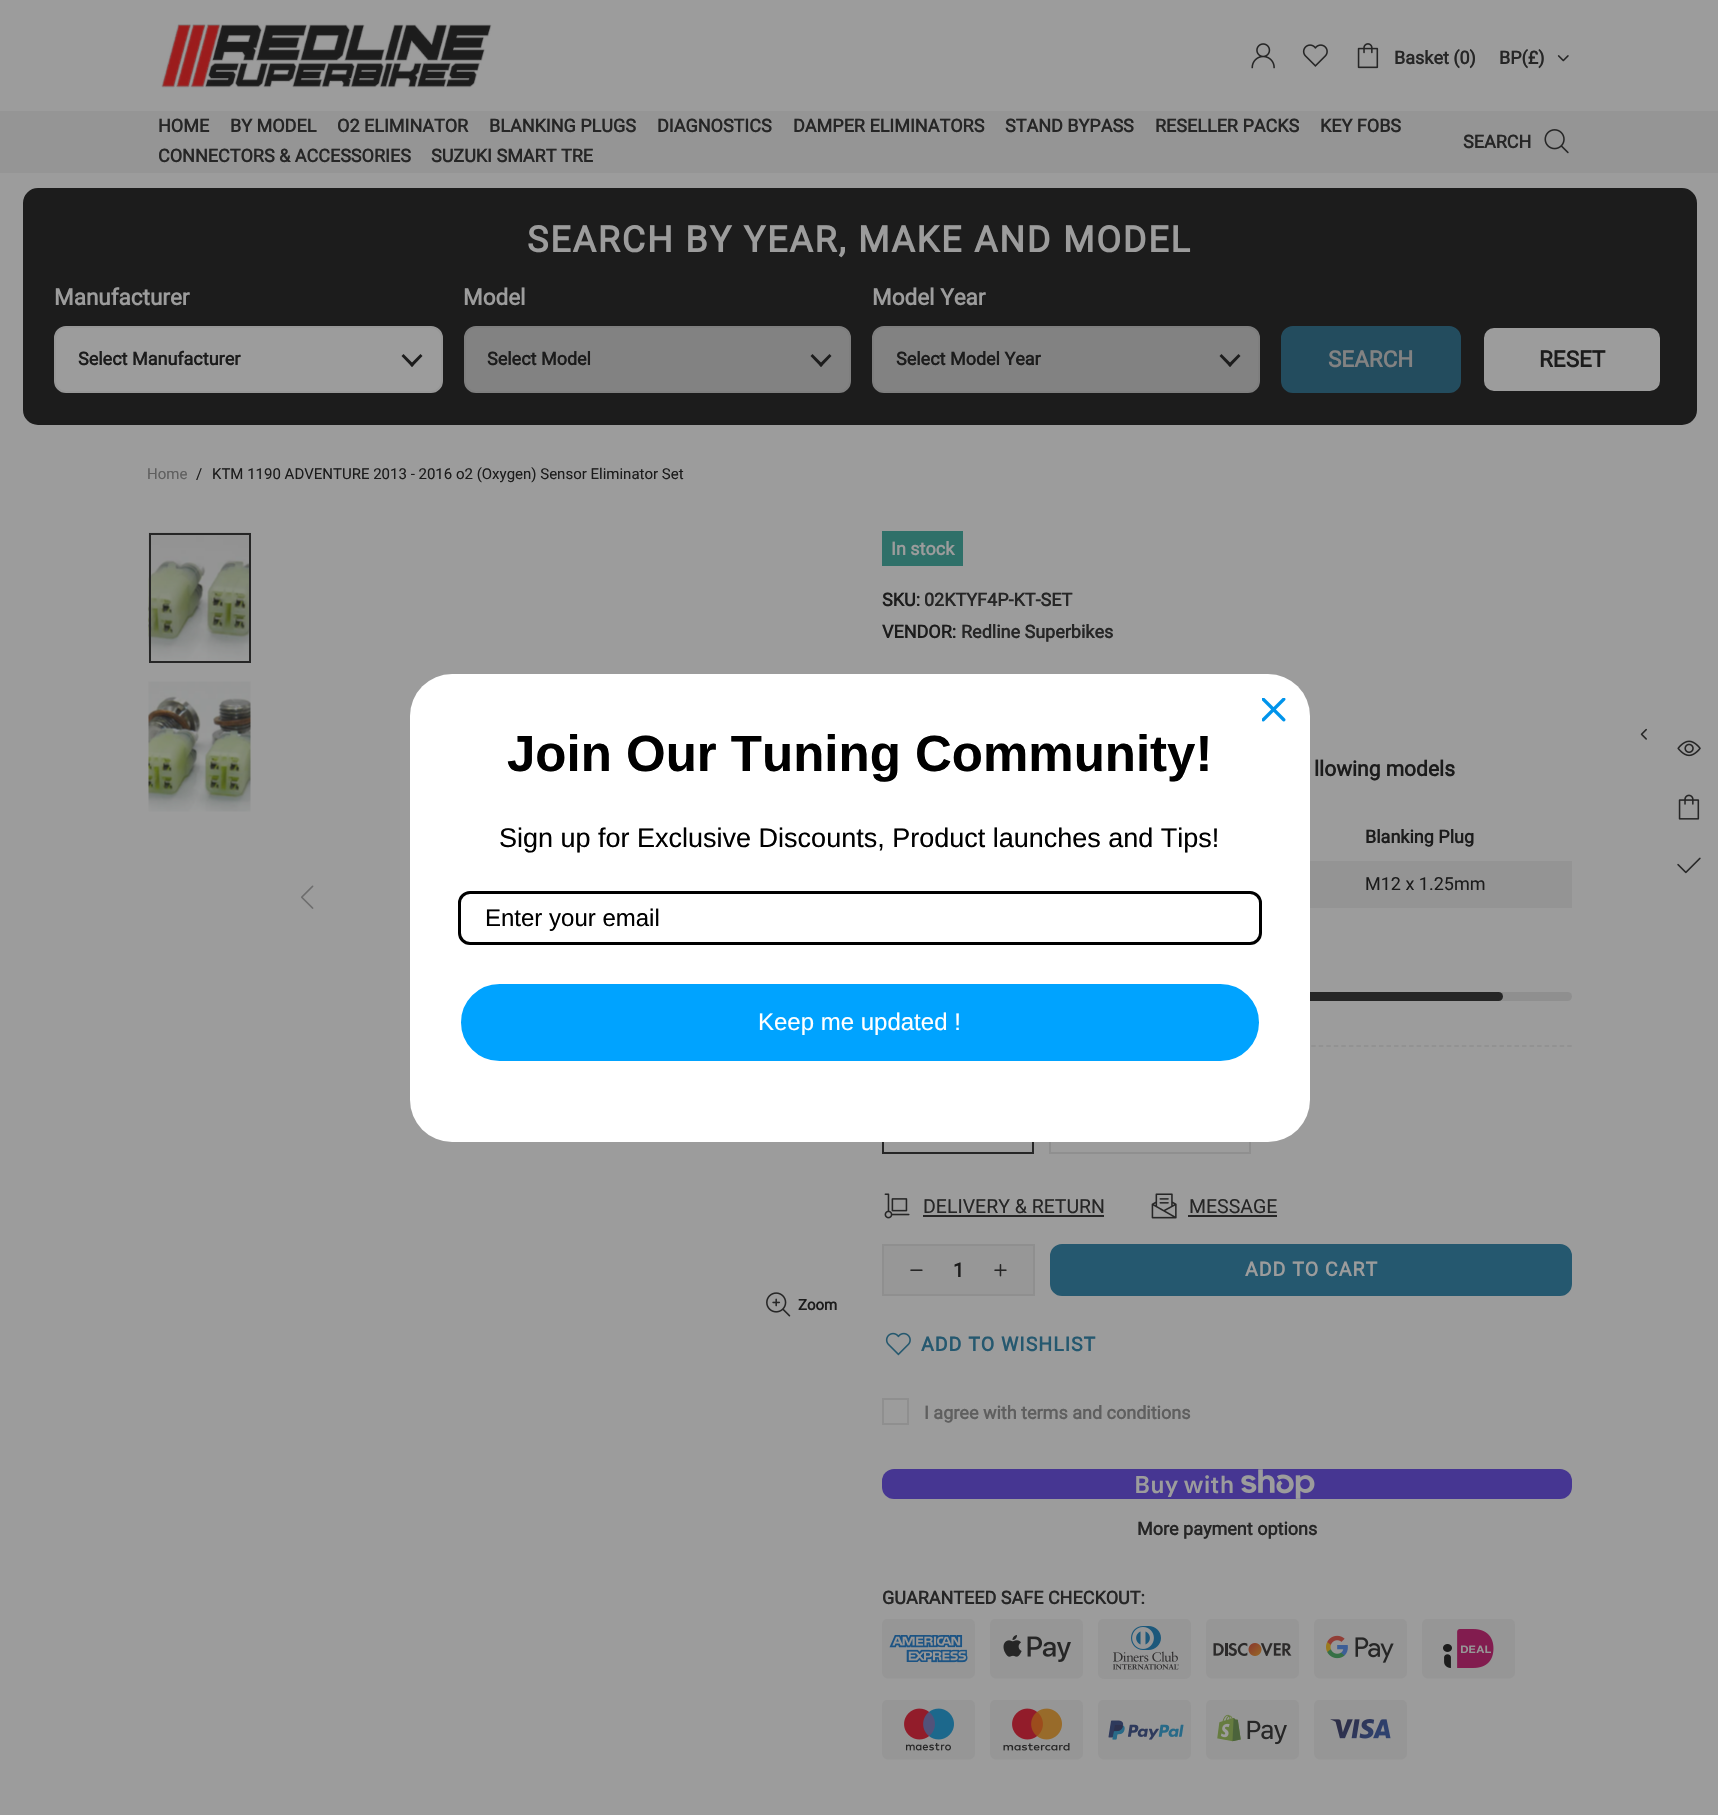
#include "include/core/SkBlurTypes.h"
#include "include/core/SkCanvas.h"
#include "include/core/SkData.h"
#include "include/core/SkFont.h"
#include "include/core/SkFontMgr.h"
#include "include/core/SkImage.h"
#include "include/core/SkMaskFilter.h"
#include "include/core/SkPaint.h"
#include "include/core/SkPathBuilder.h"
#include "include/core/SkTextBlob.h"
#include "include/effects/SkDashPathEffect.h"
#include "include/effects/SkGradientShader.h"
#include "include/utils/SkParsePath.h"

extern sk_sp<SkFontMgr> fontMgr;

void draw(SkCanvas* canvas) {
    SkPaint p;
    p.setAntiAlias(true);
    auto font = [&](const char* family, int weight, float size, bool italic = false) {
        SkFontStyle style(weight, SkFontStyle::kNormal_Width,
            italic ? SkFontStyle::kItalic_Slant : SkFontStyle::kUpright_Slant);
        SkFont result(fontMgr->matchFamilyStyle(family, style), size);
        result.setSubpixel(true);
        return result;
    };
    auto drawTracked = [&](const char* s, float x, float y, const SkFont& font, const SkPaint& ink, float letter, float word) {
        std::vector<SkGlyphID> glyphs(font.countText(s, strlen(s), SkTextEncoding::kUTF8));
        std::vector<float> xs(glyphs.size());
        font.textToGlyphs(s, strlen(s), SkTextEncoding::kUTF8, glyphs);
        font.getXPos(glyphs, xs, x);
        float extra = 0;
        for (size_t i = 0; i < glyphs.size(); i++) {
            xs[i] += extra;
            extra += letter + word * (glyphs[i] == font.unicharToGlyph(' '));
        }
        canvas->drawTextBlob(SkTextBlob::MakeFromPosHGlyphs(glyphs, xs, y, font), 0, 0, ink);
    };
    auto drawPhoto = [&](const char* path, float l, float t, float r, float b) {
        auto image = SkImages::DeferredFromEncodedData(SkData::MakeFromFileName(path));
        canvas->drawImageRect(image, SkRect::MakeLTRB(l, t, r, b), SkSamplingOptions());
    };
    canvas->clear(0xFF9C9C9C);
    drawPhoto("media/1.png", 161, 24, 492, 88);
    drawPhoto("media/2.png", 1251, 43, 1275, 69);
    drawPhoto("media/3.png", 1302, 44, 1328, 67);
    drawPhoto("media/4.png", 1357, 43, 1379, 69);
    auto font1 = font("Roboto", 700, 18);
    p.setColor(0xFF262626);
    canvas->drawString("Basket (0)", 1394, 64, font1, p);
    canvas->drawString("BP(£)", 1499, 64, font1, p);
    drawPhoto("media/5.png", 1557, 55, 1569, 62);
    p.setColor(0xFF959595);
    canvas->drawRect(SkRect::MakeLTRB(0, 111, 1718, 173), p);
    p.setColor(0xFF262626);
    {
        const struct { const char* s; float x, y; } items[] = {
            {"HOME", 158, 132},
            {"BY MODEL", 230, 132},
            {"O2 ELIMINATOR", 337, 132},
            {"BLANKING PLUGS", 489, 132},
            {"DIAGNOSTICS", 657, 132},
            {"DAMPER ELIMINATORS", 793, 132},
            {"STAND BYPASS", 1005, 132},
            {"RESELLER PACKS", 1155, 132},
            {"KEY FOBS", 1320, 132},
            {"CONNECTORS & ACCESSORIES", 158, 162},
            {"SUZUKI SMART TRE", 431, 162},
            {"SEARCH", 1463, 148},
        };
        for (auto [s, x, y] : items) {
            canvas->drawString(s, x, y, font1, p);
        }
    }
    drawPhoto("media/6.png", 1544, 129, 1569, 154);
    p.setColor(0xFF1C1C1C);
    canvas->drawRoundRect(SkRect::MakeLTRB(24, 189, 1696, 424), 14, 14, p);
    p.setStyle(SkPaint::kStroke_Style);
    p.setStrokeWidth(2);
    canvas->drawRoundRect(SkRect::MakeLTRB(24, 189, 1696, 424), 14, 14, p);
    auto font2 = font("Roboto", 700, 36);
    p.setStyle(SkPaint::kFill_Style);
    p.setColor(0xFF9C9C9C);
    drawTracked("SEARCH BY YEAR, MAKE AND MODEL", 527, 252, font2, p, 1.8f, 0);
    auto font3 = font("Roboto", 700, 22.5f);
    canvas->drawString("Manufacturer", 54, 305, font3, p);
    canvas->drawRoundRect(SkRect::MakeLTRB(55, 327, 442, 392), 11, 11, p);
    p.setStyle(SkPaint::kStroke_Style);
    p.setColor(0xFF979797);
    canvas->drawRoundRect(SkRect::MakeLTRB(55, 327, 442, 392), 11, 11, p);
    p.setStyle(SkPaint::kFill_Style);
    p.setColor(0xFF1C1C1C);
    canvas->drawString("Select Manufacturer", 78, 365, font1, p);
    canvas->drawPath(SkPathBuilder().moveTo(420.5f, 354).lineTo(422.5f, 356).lineTo(412, 367).lineTo(410, 364.5f).close().detach(), p);
    canvas->drawPath(SkPathBuilder().moveTo(403.5f, 354).lineTo(414, 364.5f).lineTo(412, 367).lineTo(401.5f, 356).close().detach(), p);
    p.setColor(0xFF9C9C9C);
    canvas->drawString("Model", 463, 305, font3, p);
    p.setColor(0xFF828282);
    canvas->drawRoundRect(SkRect::MakeLTRB(465, 327, 850, 392), 11, 11, p);
    p.setStyle(SkPaint::kStroke_Style);
    p.setColor(0xFF7E7E7E);
    canvas->drawRoundRect(SkRect::MakeLTRB(465, 327, 850, 392), 11, 11, p);
    p.setStyle(SkPaint::kFill_Style);
    p.setColor(0xFF1C1C1C);
    canvas->drawString("Select Model", 487, 365, font1, p);
    canvas->drawPath(SkPathBuilder().moveTo(829.5f, 354).lineTo(831.5f, 356).lineTo(821, 367).lineTo(819, 364.5f).close().detach(), p);
    canvas->drawPath(SkPathBuilder().moveTo(812.5f, 354).lineTo(823, 364.5f).lineTo(821, 367).lineTo(810.5f, 356).close().detach(), p);
    p.setColor(0xFF9C9C9C);
    canvas->drawString("Model Year", 872, 305, font3, p);
    p.setColor(0xFF828282);
    canvas->drawRoundRect(SkRect::MakeLTRB(873, 327, 1259, 392), 11, 11, p);
    p.setStyle(SkPaint::kStroke_Style);
    p.setColor(0xFF7E7E7E);
    canvas->drawRoundRect(SkRect::MakeLTRB(873, 327, 1259, 392), 11, 11, p);
    p.setStyle(SkPaint::kFill_Style);
    p.setColor(0xFF1C1C1C);
    canvas->drawString("Select Model Year", 896, 365, font1, p);
    canvas->drawPath(SkPathBuilder().moveTo(1238.5f, 354).lineTo(1240.5f, 356).lineTo(1230, 367).lineTo(1228, 364.5f).close().detach(), p);
    canvas->drawPath(SkPathBuilder().moveTo(1221.5f, 354).lineTo(1232, 364.5f).lineTo(1230, 367).lineTo(1219.5f, 356).close().detach(), p);
    p.setColor(0xFF234C5E);
    canvas->drawRoundRect(SkRect::MakeLTRB(1282, 327, 1460, 392), 11, 11, p);
    p.setStyle(SkPaint::kStroke_Style);
    canvas->drawRoundRect(SkRect::MakeLTRB(1282, 327, 1460, 392), 11, 11, p);
    p.setStyle(SkPaint::kFill_Style);
    p.setColor(0xFF828282);
    canvas->drawString("SEARCH", 1328, 367, font3, p);
    p.setColor(0xFF9C9C9C);
    canvas->drawRoundRect(SkRect::MakeLTRB(1483, 327, 1661, 392), 11, 11, p);
    p.setStyle(SkPaint::kStroke_Style);
    p.setColor(0xFF1C1C1C);
    canvas->drawRoundRect(SkRect::MakeLTRB(1483, 327, 1661, 392), 11, 11, p);
    p.setStyle(SkPaint::kFill_Style);
    canvas->drawString("RESET", 1539, 367, font3, p);
    auto font4 = font("Roboto", 400, 15);
    p.setColor(0xFF5F5F5F);
    canvas->drawString("Home", 147, 479, font4, p);
    p.setColor(0xFF1C1C1C);
    canvas->drawString("/", 196, 479, font4, p);
    canvas->drawString("KTM 1190 ADVENTURE 2013 - 2016 o2 (Oxygen) Sensor Eliminator Set", 212, 479, font4, p);
    drawPhoto("media/7.png", 148, 532, 251, 662);
    p.setStyle(SkPaint::kStroke_Style);
    p.setColor(0xFF262626);
    canvas->drawRect(SkRect::MakeLTRB(150, 534, 250, 662), p);
    drawPhoto("media/8.png", 148, 681, 251, 812);
    drawPhoto("media/9.png", 301, 885, 314, 909);
    drawPhoto("media/10.png", 766, 1292, 791, 1317);
    auto font5 = font("Roboto", 700, 15);
    p.setStyle(SkPaint::kFill_Style);
    p.setColor(0xFF1C1C1C);
    canvas->drawString("Zoom", 798, 1310, font5, p);
    p.setColor(0xFF2F7069);
    canvas->drawRect(SkRect::MakeLTRB(882, 531, 963, 566), p);
    p.setColor(0xFF9C9C9C);
    canvas->drawString("In stock", 891, 555, font1, p);
    p.setColor(0xFF1C1C1C);
    canvas->drawString("SKU:", 882, 606, font1, p);
    p.setColor(0xFF262626);
    canvas->drawString("02KTYF4P-KT-SET", 924, 606, font1, p);
    p.setColor(0xFF1C1C1C);
    canvas->drawString("VENDOR:", 882, 638, font1, p);
    p.setColor(0xFF262626);
    canvas->drawString("Redline Superbikes", 961, 638, font1, p);
    auto font6 = font("Roboto", 700, 21);
    p.setColor(0xFF1C1C1C);
    canvas->drawString("llowing models", 1314, 776, font6, p);
    canvas->drawString("Blanking Plug", 1365, 843, font1, p);
    p.setColor(0xFF949494);
    canvas->drawRect(SkRect::MakeLTRB(1310, 861, 1572, 908), p);
    auto font7 = font("Roboto", 400, 18);
    p.setColor(0xFF1C1C1C);
    canvas->drawString("M12 x 1.25mm", 1365, 890, font7, p);
    p.setColor(0xFF8F8F8F);
    canvas->drawRoundRect(SkRect::MakeLTRB(882, 992, 1572, 1001), 4.5f, 4.5f, p);
    p.setColor(0xFF262626);
    canvas->drawRoundRect(SkRect::MakeLTRB(882, 992, 1503, 1001), 4.5f, 4.5f, p);
    p.setStyle(SkPaint::kStroke_Style);
    p.setStrokeWidth(1.5f);
    p.setColor(0xFF8F8F8F);
    p.setPathEffect(SkDashPathEffect::Make({{4.5f, 3.03f}}, 0));
    canvas->drawPath(SkPathBuilder().moveTo(882, 1046).lineTo(1572, 1046).detach(), p);
    p.setPathEffect(nullptr);
    p.setStrokeWidth(2);
    p.setColor(0xFF262626);
    canvas->drawRect(SkRect::MakeLTRB(883, 1117, 1033, 1153), p);
    p.setColor(0xFF8F8F8F);
    canvas->drawRect(SkRect::MakeLTRB(1050, 1117, 1250, 1153), p);
    drawPhoto("media/11.png", 884, 1193, 910, 1219);
    auto font8 = font("Roboto", 400, 19.5f);
    p.setStyle(SkPaint::kFill_Style);
    p.setColor(0xFF262626);
    canvas->drawString("DELIVERY & RETURN", 923, 1213, font8, p);
    canvas->drawRect(SkRect::MakeLTRB(923, 1215, 1104, 1217), p);
    drawPhoto("media/12.png", 1151, 1193, 1177, 1219);
    canvas->drawString("MESSAGE", 1189, 1213, font8, p);
    canvas->drawRect(SkRect::MakeLTRB(1188, 1215, 1277, 1217), p);
    p.setColor(0xFF979797);
    canvas->drawRect(SkRect::MakeLTRB(883, 1245, 1034, 1295), p);
    p.setStyle(SkPaint::kStroke_Style);
    p.setColor(0xFF8F8F8F);
    canvas->drawRect(SkRect::MakeLTRB(883, 1245, 1034, 1295), p);
    drawPhoto("media/13.png", 910, 1269, 923, 1271);
    auto font9 = font("Roboto", 700, 19.5f);
    p.setStyle(SkPaint::kFill_Style);
    p.setColor(0xFF1C1C1C);
    canvas->drawString("1", 953, 1277, font9, p);
    drawPhoto("media/14.png", 994, 1264, 1007, 1277);
    p.setColor(0xFF25586F);
    canvas->drawRoundRect(SkRect::MakeLTRB(1051, 1245, 1571, 1295), 11, 11, p);
    p.setStyle(SkPaint::kStroke_Style);
    canvas->drawRoundRect(SkRect::MakeLTRB(1051, 1245, 1571, 1295), 11, 11, p);
    p.setStyle(SkPaint::kFill_Style);
    p.setColor(0xFF9C9C9C);
    drawTracked("ADD TO CART", 1245, 1276, font9, p, 1, 0);
    drawPhoto("media/15.png", 885, 1332, 911, 1356);
    p.setColor(0xFF25586F);
    drawTracked("ADD TO WISHLIST", 921, 1351, font9, p, 1, 0);
    p.setStyle(SkPaint::kStroke_Style);
    p.setColor(0xFF8F8F8F);
    canvas->drawRect(SkRect::MakeLTRB(883, 1399, 908, 1424), p);
    p.setStyle(SkPaint::kFill_Style);
    p.setColor(0xFF5F5F5F);
    canvas->drawString("I agree with terms and conditions", 924, 1419, font1, p);
    p.setColor(0xFF463692);
    canvas->drawRoundRect(SkRect::MakeLTRB(882, 1469, 1572, 1499), 12, 12, p);
    auto font10 = font("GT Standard", 600, 24);
    p.setColor(0xFF9C9C9C);
    canvas->drawString("Buy with", 1134, 1493, font10, p);
    drawPhoto("media/16.png", 1241, 1469, 1315, 1499);
    p.setColor(0xFF262626);
    canvas->drawString("More payment options", 1137, 1535, font1, p);
    canvas->drawString("GUARANTEED SAFE CHECKOUT:", 882, 1604, font1, p);
    drawPhoto("media/17.png", 882, 1619, 975, 1679);
    drawPhoto("media/18.png", 990, 1619, 1083, 1679);
    drawPhoto("media/19.png", 1098, 1619, 1191, 1679);
    drawPhoto("media/20.png", 1206, 1619, 1299, 1679);
    drawPhoto("media/21.png", 1314, 1619, 1407, 1679);
    drawPhoto("media/22.png", 1422, 1619, 1515, 1679);
    drawPhoto("media/23.png", 882, 1700, 975, 1760);
    drawPhoto("media/24.png", 990, 1700, 1083, 1760);
    drawPhoto("media/25.png", 1098, 1700, 1191, 1760);
    drawPhoto("media/26.png", 1206, 1700, 1299, 1760);
    drawPhoto("media/27.png", 1314, 1700, 1407, 1760);
    drawPhoto("media/28.png", 1640, 728, 1647, 740);
    drawPhoto("media/29.png", 1677, 740, 1701, 757);
    drawPhoto("media/30.png", 1678, 794, 1700, 820);
    drawPhoto("media/31.png", 1677, 857, 1701, 874);
    p.setColor(0xFFFFFFFF);
    canvas->drawRoundRect(SkRect::MakeLTRB(410, 674, 1310, 1142), 42, 42, p);
    drawPhoto("media/32.png", 1262, 698, 1286, 722);
    auto font11 = font("Liberation Sans", 700, 51);
    p.setColor(0xFF000000);
    canvas->drawString("Join Our Tuning Community!", 507, 771, font11, p);
    auto font12 = font("Liberation Sans", 400, 27);
    canvas->drawString("Sign up for Exclusive Discounts, Product launches and Tips!", 499, 847, font12, p);
    p.setStyle(SkPaint::kStroke_Style);
    p.setStrokeWidth(3);
    canvas->drawRoundRect(SkRect::MakeLTRB(459.5f, 892.5f, 1260.5f, 943.5f), 10.5f, 10.5f, p);
    auto font13 = font("Liberation Sans", 400, 24);
    p.setStyle(SkPaint::kFill_Style);
    canvas->drawString("Enter your email", 485, 926, font13, p);
    p.setColor(0xFF00A3FF);
    canvas->drawRoundRect(SkRect::MakeLTRB(459.5f, 982.5f, 1260.5f, 1062.5f), 40, 40, p);
    p.setStyle(SkPaint::kStroke_Style);
    p.setColor(0xFFFFFFFF);
    canvas->drawRoundRect(SkRect::MakeLTRB(459.5f, 982.5f, 1260.5f, 1062.5f), 40, 40, p);
    p.setStyle(SkPaint::kFill_Style);
    canvas->drawString("Keep me updated !", 758, 1030, font13, p);
}
